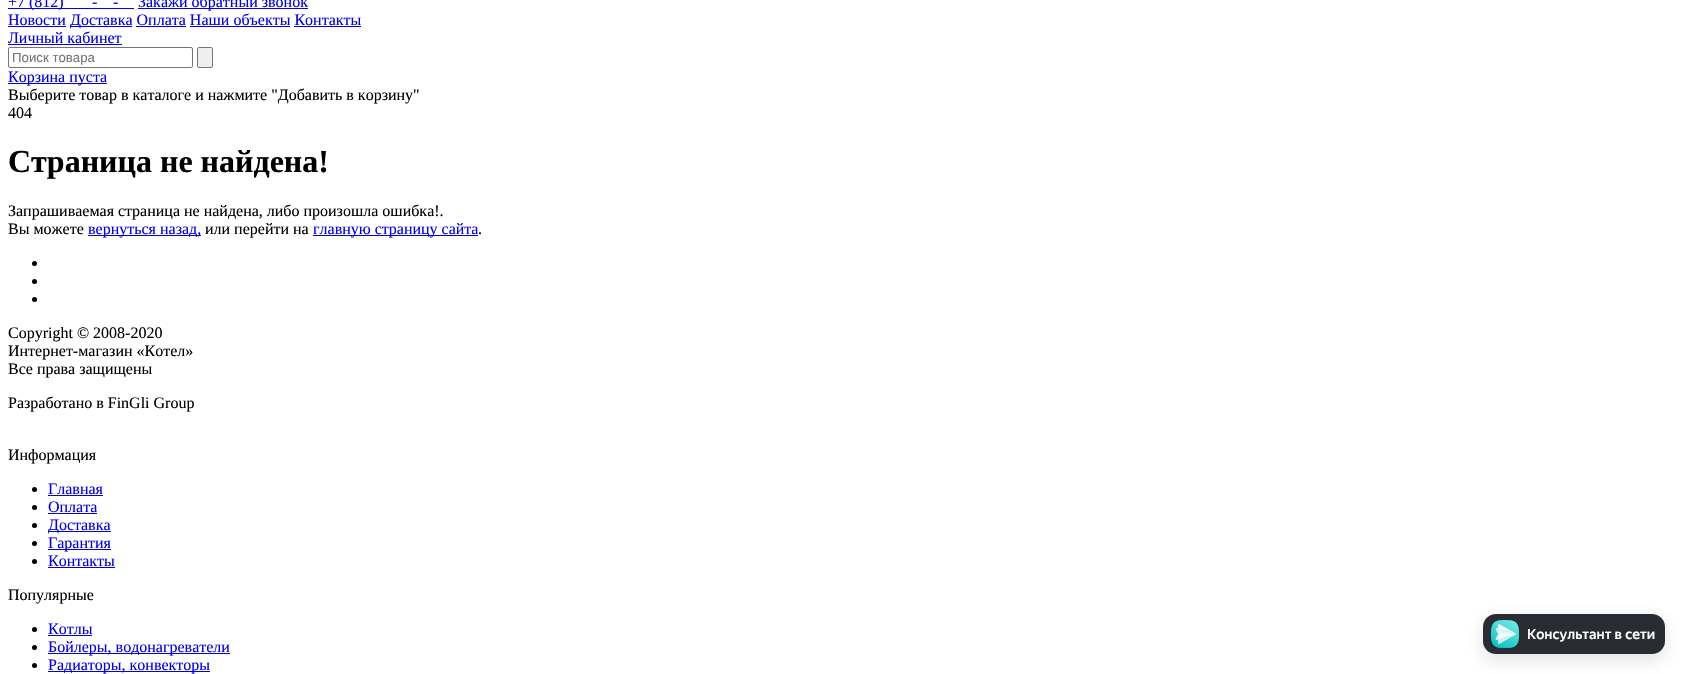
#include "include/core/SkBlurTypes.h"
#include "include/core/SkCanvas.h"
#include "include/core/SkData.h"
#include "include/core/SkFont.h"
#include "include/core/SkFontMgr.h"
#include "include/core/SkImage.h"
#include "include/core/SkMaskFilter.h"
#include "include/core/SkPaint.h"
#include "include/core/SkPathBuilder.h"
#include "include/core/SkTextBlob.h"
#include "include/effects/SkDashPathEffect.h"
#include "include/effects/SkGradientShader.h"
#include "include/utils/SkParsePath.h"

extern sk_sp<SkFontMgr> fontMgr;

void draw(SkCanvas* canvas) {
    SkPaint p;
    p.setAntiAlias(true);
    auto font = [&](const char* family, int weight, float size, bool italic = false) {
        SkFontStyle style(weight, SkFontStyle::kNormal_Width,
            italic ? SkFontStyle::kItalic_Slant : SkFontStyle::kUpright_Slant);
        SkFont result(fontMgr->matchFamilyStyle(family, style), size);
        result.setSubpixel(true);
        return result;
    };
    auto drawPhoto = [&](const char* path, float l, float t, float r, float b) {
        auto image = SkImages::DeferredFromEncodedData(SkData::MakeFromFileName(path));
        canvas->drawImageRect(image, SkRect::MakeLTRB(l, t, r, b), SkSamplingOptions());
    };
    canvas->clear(0xFFFFFFFF);
    p.setColor(0xFF0000EE);
    canvas->drawRect(SkRect::MakeLTRB(8, 8, 134, 9), p);
    auto font1 = font("Liberation Serif", 400, 16);
    {
        const struct { const char* s; float x, y; } items[] = {
            {"+7 (812)", 8, 7},
            {"-", 92, 7},
            {"-", 113, 7},
        };
        for (auto [s, x, y] : items) {
            canvas->drawString(s, x, y, font1, p);
        }
    }
    canvas->drawRect(SkRect::MakeLTRB(138, 8, 308, 9), p);
    canvas->drawString("Закажи обратный звонок", 138, 7, font1, p);
    canvas->drawString("Новости", 8, 25, font1, p);
    canvas->drawRect(SkRect::MakeLTRB(8, 26, 66, 27), p);
    canvas->drawRect(SkRect::MakeLTRB(70, 26, 132, 27), p);
    canvas->drawString("Доставка Оплата Наши объекты Контакты", 70, 25, font1, p);
    {
        const struct { float l, t, r, b; SkColor color; } items[] = {
            {136, 26, 186, 27, 0xFF0000EE},
            {190, 26, 290, 27, 0xFF0000EE},
            {294, 26, 361, 27, 0xFF0000EE},
        };
        for (auto [l, t, r, b, color] : items) {
            p.setColor(color);
            canvas->drawRect(SkRect::MakeLTRB(l, t, r, b), p);
        }
    }
    canvas->drawString("Личный кабинет", 8, 43, font1, p);
    canvas->drawRect(SkRect::MakeLTRB(8, 44, 122, 45), p);
    p.setStyle(SkPaint::kStroke_Style);
    p.setStrokeWidth(1);
    p.setColor(0xFF767676);
    canvas->drawRoundRect(SkRect::MakeLTRB(8.5f, 47.5f, 192.5f, 67.5f), 1.5f, 1.5f, p);
    auto font2 = font("Liberation Sans", 400, 13.25f);
    p.setStyle(SkPaint::kFill_Style);
    p.setColor(0xFF757575);
    canvas->drawString("Поиск товара", 12, 62, font2, p);
    p.setColor(0xFFEFEFEF);
    canvas->drawRoundRect(SkRect::MakeLTRB(197.5f, 47.5f, 212.5f, 67.5f), 1.5f, 1.5f, p);
    p.setStyle(SkPaint::kStroke_Style);
    p.setColor(0xFF767676);
    canvas->drawRoundRect(SkRect::MakeLTRB(197.5f, 47.5f, 212.5f, 67.5f), 1.5f, 1.5f, p);
    p.setStyle(SkPaint::kFill_Style);
    p.setColor(0xFF0000EE);
    canvas->drawRect(SkRect::MakeLTRB(8, 83, 107, 84), p);
    canvas->drawString("Корзина пуста", 8, 82, font1, p);
    p.setColor(0xFF000000);
    canvas->drawString("Выберите товар в каталоге и нажмите \"Добавить в корзину\"", 8, 100, font1, p);
    canvas->drawString("404", 8, 118, font1, p);
    auto font3 = font("Liberation Serif", 700, 32);
    canvas->drawString("Страница не найдена!", 8, 172, font3, p);
    canvas->drawString("Запрашиваемая страница не найдена, либо произошла ошибка!.", 8, 216, font1, p);
    canvas->drawString("Вы можете", 8, 234, font1, p);
    p.setColor(0xFF0000EE);
    canvas->drawRect(SkRect::MakeLTRB(88, 235, 201, 236), p);
    canvas->drawString("вернуться назад,", 88, 234, font1, p);
    p.setColor(0xFF000000);
    canvas->drawString("или перейти на", 205, 234, font1, p);
    p.setColor(0xFF0000EE);
    canvas->drawRect(SkRect::MakeLTRB(313, 235, 478, 236), p);
    canvas->drawString("главную страницу сайта", 313, 234, font1, p);
    p.setColor(0xFF000000);
    canvas->drawString(".", 478, 234, font1, p);
    canvas->drawCircle(34.5f, 263.5f, 2.5f, p);
    canvas->drawCircle(34.5f, 281.5f, 2.5f, p);
    canvas->drawCircle(34.5f, 299.5f, 2.5f, p);
    {
        const struct { const char* s; float x, y; } items[] = {
            {"Copyright © 2008-2020", 8, 338},
            {"Интернет-магазин «Котел»", 8, 356},
            {"Все права защищены", 8, 374},
            {"Разработано в FinGli Group", 8, 408},
            {"Информация", 8, 460},
        };
        for (auto [s, x, y] : items) {
            canvas->drawString(s, x, y, font1, p);
        }
    }
    canvas->drawCircle(34.5f, 489.5f, 2.5f, p);
    p.setColor(0xFF0000EE);
    canvas->drawString("Главная", 48, 494, font1, p);
    canvas->drawRect(SkRect::MakeLTRB(48, 495, 103, 496), p);
    p.setColor(0xFF000000);
    canvas->drawCircle(34.5f, 507.5f, 2.5f, p);
    p.setColor(0xFF0000EE);
    canvas->drawString("Оплата", 48, 512, font1, p);
    canvas->drawRect(SkRect::MakeLTRB(48, 513, 97, 514), p);
    p.setColor(0xFF000000);
    canvas->drawCircle(34.5f, 525.5f, 2.5f, p);
    p.setColor(0xFF0000EE);
    canvas->drawRect(SkRect::MakeLTRB(48, 531, 111, 532), p);
    canvas->drawString("Доставка", 48, 530, font1, p);
    p.setColor(0xFF000000);
    canvas->drawCircle(34.5f, 543.5f, 2.5f, p);
    p.setColor(0xFF0000EE);
    canvas->drawRect(SkRect::MakeLTRB(48, 549, 111, 550), p);
    canvas->drawString("Гарантия", 48, 548, font1, p);
    p.setColor(0xFF000000);
    canvas->drawCircle(34.5f, 561.5f, 2.5f, p);
    p.setColor(0xFF0000EE);
    canvas->drawString("Контакты", 48, 566, font1, p);
    canvas->drawRect(SkRect::MakeLTRB(48, 567, 115, 568), p);
    p.setColor(0xFF000000);
    canvas->drawString("Популярные", 8, 600, font1, p);
    canvas->drawCircle(34.5f, 629.5f, 2.5f, p);
    p.setColor(0xFF0000EE);
    canvas->drawString("Котлы", 48, 634, font1, p);
    canvas->drawRect(SkRect::MakeLTRB(48, 635, 92, 636), p);
    p.setColor(0xFF000000);
    canvas->drawCircle(34.5f, 647.5f, 2.5f, p);
    p.setColor(0xFF0000EE);
    canvas->drawRect(SkRect::MakeLTRB(48, 653, 230, 654), p);
    canvas->drawString("Бойлеры, водонагреватели", 48, 652, font1, p);
    p.setColor(0xFF000000);
    canvas->drawCircle(34.5f, 665.5f, 2.5f, p);
    p.setColor(0xFF0000EE);
    canvas->drawRect(SkRect::MakeLTRB(48, 671, 210, 672), p);
    canvas->drawString("Радиаторы, конвекторы", 48, 670, font1, p);
    p.setColor(0x210E152F);
    p.setMaskFilter(SkMaskFilter::MakeBlur(kNormal_SkBlurStyle, 9));
    canvas->drawRoundRect(SkRect::MakeLTRB(1483, 620, 1665, 660), 13, 13, p);
    p.setMaskFilter(nullptr);
    p.setColor(0xFF292C33);
    canvas->drawRoundRect(SkRect::MakeLTRB(1483, 614, 1665, 654), 13, 13, p);
    drawPhoto("media/1.png", 1491, 620, 1519, 648);
    auto font4 = font("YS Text", 500, 14);
    p.setColor(0xFFFFFFFF);
    canvas->drawString("Консультант в сети", 1527, 639, font4, p);
}
